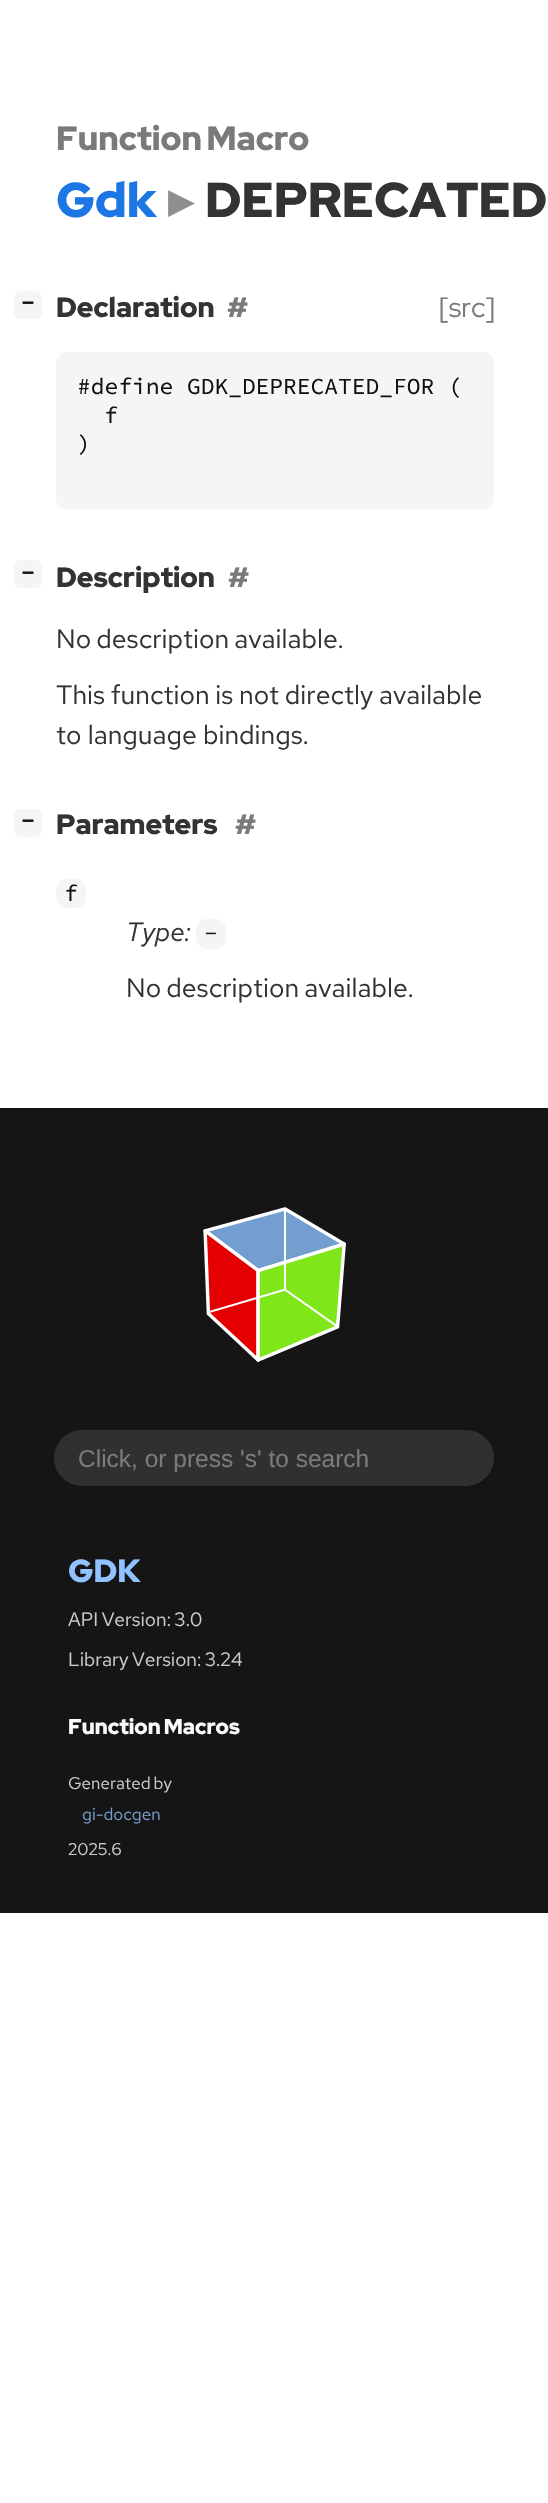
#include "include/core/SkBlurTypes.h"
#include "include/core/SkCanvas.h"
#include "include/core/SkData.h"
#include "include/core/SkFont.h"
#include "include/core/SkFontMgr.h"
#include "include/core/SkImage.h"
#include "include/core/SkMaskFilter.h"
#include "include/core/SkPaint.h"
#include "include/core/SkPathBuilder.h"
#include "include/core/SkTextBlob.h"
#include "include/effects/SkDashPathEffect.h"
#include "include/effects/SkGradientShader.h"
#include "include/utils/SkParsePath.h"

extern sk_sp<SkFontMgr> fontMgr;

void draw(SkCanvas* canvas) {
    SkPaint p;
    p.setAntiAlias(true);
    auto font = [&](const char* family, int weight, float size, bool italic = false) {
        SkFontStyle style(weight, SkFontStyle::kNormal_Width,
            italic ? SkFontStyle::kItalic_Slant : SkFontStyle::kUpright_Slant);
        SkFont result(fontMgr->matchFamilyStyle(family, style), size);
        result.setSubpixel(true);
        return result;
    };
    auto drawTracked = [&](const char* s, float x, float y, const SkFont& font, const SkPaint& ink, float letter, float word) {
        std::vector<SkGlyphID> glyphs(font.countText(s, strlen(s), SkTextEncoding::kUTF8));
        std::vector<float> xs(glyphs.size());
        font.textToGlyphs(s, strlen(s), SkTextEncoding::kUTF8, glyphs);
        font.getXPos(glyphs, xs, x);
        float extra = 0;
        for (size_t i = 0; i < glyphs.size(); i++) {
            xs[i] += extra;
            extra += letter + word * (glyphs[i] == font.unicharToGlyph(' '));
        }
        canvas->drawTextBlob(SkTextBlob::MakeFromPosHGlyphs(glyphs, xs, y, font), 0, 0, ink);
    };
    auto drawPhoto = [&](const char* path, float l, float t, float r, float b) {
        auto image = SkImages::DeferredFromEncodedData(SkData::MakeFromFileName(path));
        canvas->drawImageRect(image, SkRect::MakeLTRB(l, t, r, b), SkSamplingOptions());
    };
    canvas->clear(0xFFFFFFFF);
    auto font1 = font("Red Hat Display", 900, 33.5f);
    p.setColor(0xFF7A7A7A);
    drawTracked("Function Macro", 56, 150, font1, p, 0, -2);
    auto font2 = font("Red Hat Display", 900, 49);
    p.setColor(0xFF1C76E4);
    canvas->drawString("Gdk", 56, 217, font2, p);
    auto font3 = font("DejaVu Sans", 700, 49);
    p.setColor(0xFF8F8F8F);
    canvas->drawString("▸", 168, 217, font3, p);
    p.setColor(0xFF333333);
    canvas->drawString("DEPRECATED", 205, 217, font2, p);
    p.setColor(0xFFF5F5F5);
    canvas->drawRoundRect(SkRect::MakeLTRB(14, 291, 42, 319), 7, 7, p);
    auto font4 = font("DejaVu Sans Mono", 700, 20);
    p.setColor(0xFF111111);
    canvas->drawString("−", 22, 309, font4, p);
    auto font5 = font("Red Hat Display", 900, 28);
    p.setColor(0xFF333333);
    canvas->drawString("Declaration", 56, 317, font5, p);
    p.setColor(0xFF7A7A7A);
    canvas->drawString("#", 227, 317, font5, p);
    auto font6 = font("Red Hat Display", 400, 28);
    canvas->drawString("[src]", 439, 317, font6, p);
    p.setColor(0xFFF5F5F5);
    canvas->drawRoundRect(SkRect::MakeLTRB(56, 352, 494, 509), 11, 11, p);
    auto font7 = font("Source Code Pro", 400, 22.9f);
    p.setColor(0xFF111111);
    {
        const struct { const char* s; float x, y; } items[] = {
            {"#define GDK_DEPRECATED_FOR (", 77, 394},
            {"f", 104, 423},
            {")", 77, 451},
        };
        for (auto [s, x, y] : items) {
            canvas->drawString(s, x, y, font7, p);
        }
    }
    p.setColor(0xFFF5F5F5);
    canvas->drawRoundRect(SkRect::MakeLTRB(14, 560, 42, 588), 7, 7, p);
    p.setColor(0xFF111111);
    canvas->drawString("−", 22, 579, font4, p);
    p.setColor(0xFF333333);
    canvas->drawString("Description", 56, 587, font5, p);
    p.setColor(0xFF7A7A7A);
    canvas->drawString("#", 228, 587, font5, p);
    auto font8 = font("Red Hat Text", 400, 26.6f);
    p.setColor(0xFF333333);
    drawTracked("No description available.", 56, 648, font8, p, 0, -1);
    drawTracked("This function is not directly available", 56, 704, font8, p, 0, -0.5f);
    canvas->drawString("to language bindings.", 56, 744, font8, p);
    p.setColor(0xFFF5F5F5);
    canvas->drawRoundRect(SkRect::MakeLTRB(14, 809, 42, 837), 7, 7, p);
    p.setColor(0xFF111111);
    canvas->drawString("−", 22, 827, font4, p);
    p.setColor(0xFF333333);
    canvas->drawString("Parameters", 56, 834, font5, p);
    p.setColor(0xFF7A7A7A);
    canvas->drawString("#", 235, 834, font5, p);
    p.setColor(0xFFF5F5F5);
    canvas->drawRoundRect(SkRect::MakeLTRB(56, 879, 86, 908), 11, 11, p);
    p.setColor(0xFF111111);
    canvas->drawString("f", 64, 901, font7, p);
    auto font9 = font("Red Hat Text", 400, 26.6f, true);
    p.setColor(0xFF333333);
    canvas->drawString("Type:", 126, 941, font9, p);
    p.setColor(0xFFF5F5F5);
    canvas->drawRoundRect(SkRect::MakeLTRB(196, 919, 226, 949), 11, 11, p);
    p.setColor(0xFF111111);
    canvas->drawString("-", 204, 941, font7, p);
    p.setColor(0xFF333333);
    drawTracked("No description available.", 126, 997, font8, p, 0, -1);
    p.setColor(0xFF151515);
    canvas->drawRect(SkRect::MakeLTRB(0, 1108, 548, 1913), p);
    drawPhoto("media/1.png", 203, 1207, 346, 1362);
    p.setColor(0xFF303030);
    canvas->drawRoundRect(SkRect::MakeLTRB(54, 1430, 494, 1486), 28, 28, p);
    auto font10 = font("Liberation Sans", 400, 24.5f);
    p.setColor(0xFF7A7A7A);
    canvas->drawString("Click, or press 's' to search", 78, 1467, font10, p);
    auto font11 = font("Red Hat Display", 900, 32);
    p.setColor(0xFF90C2FF);
    canvas->drawString("GDK", 68, 1582, font11, p);
    auto font12 = font("Red Hat Text", 400, 19.25f);
    p.setColor(0xFFCCCCCC);
    drawTracked("API Version: 3.0", 68, 1626, font12, p, 0, -1);
    drawTracked("Library Version: 3.24", 68, 1666, font12, p, 0, -1);
    auto font13 = font("Red Hat Display", 900, 21.25f);
    p.setColor(0xFFFAFAFA);
    drawTracked("Function Macros", 68, 1734, font13, p, 0, -1);
    auto font14 = font("Red Hat Text", 400, 17);
    p.setColor(0xFFCCCCCC);
    drawTracked("Generated by", 68, 1789, font14, p, 0, -1);
    p.setColor(0xFF779FD0);
    canvas->drawString("gi-docgen", 82, 1820, font14, p);
    p.setColor(0xFFCCCCCC);
    canvas->drawString("2025.6", 68, 1855, font14, p);
}
